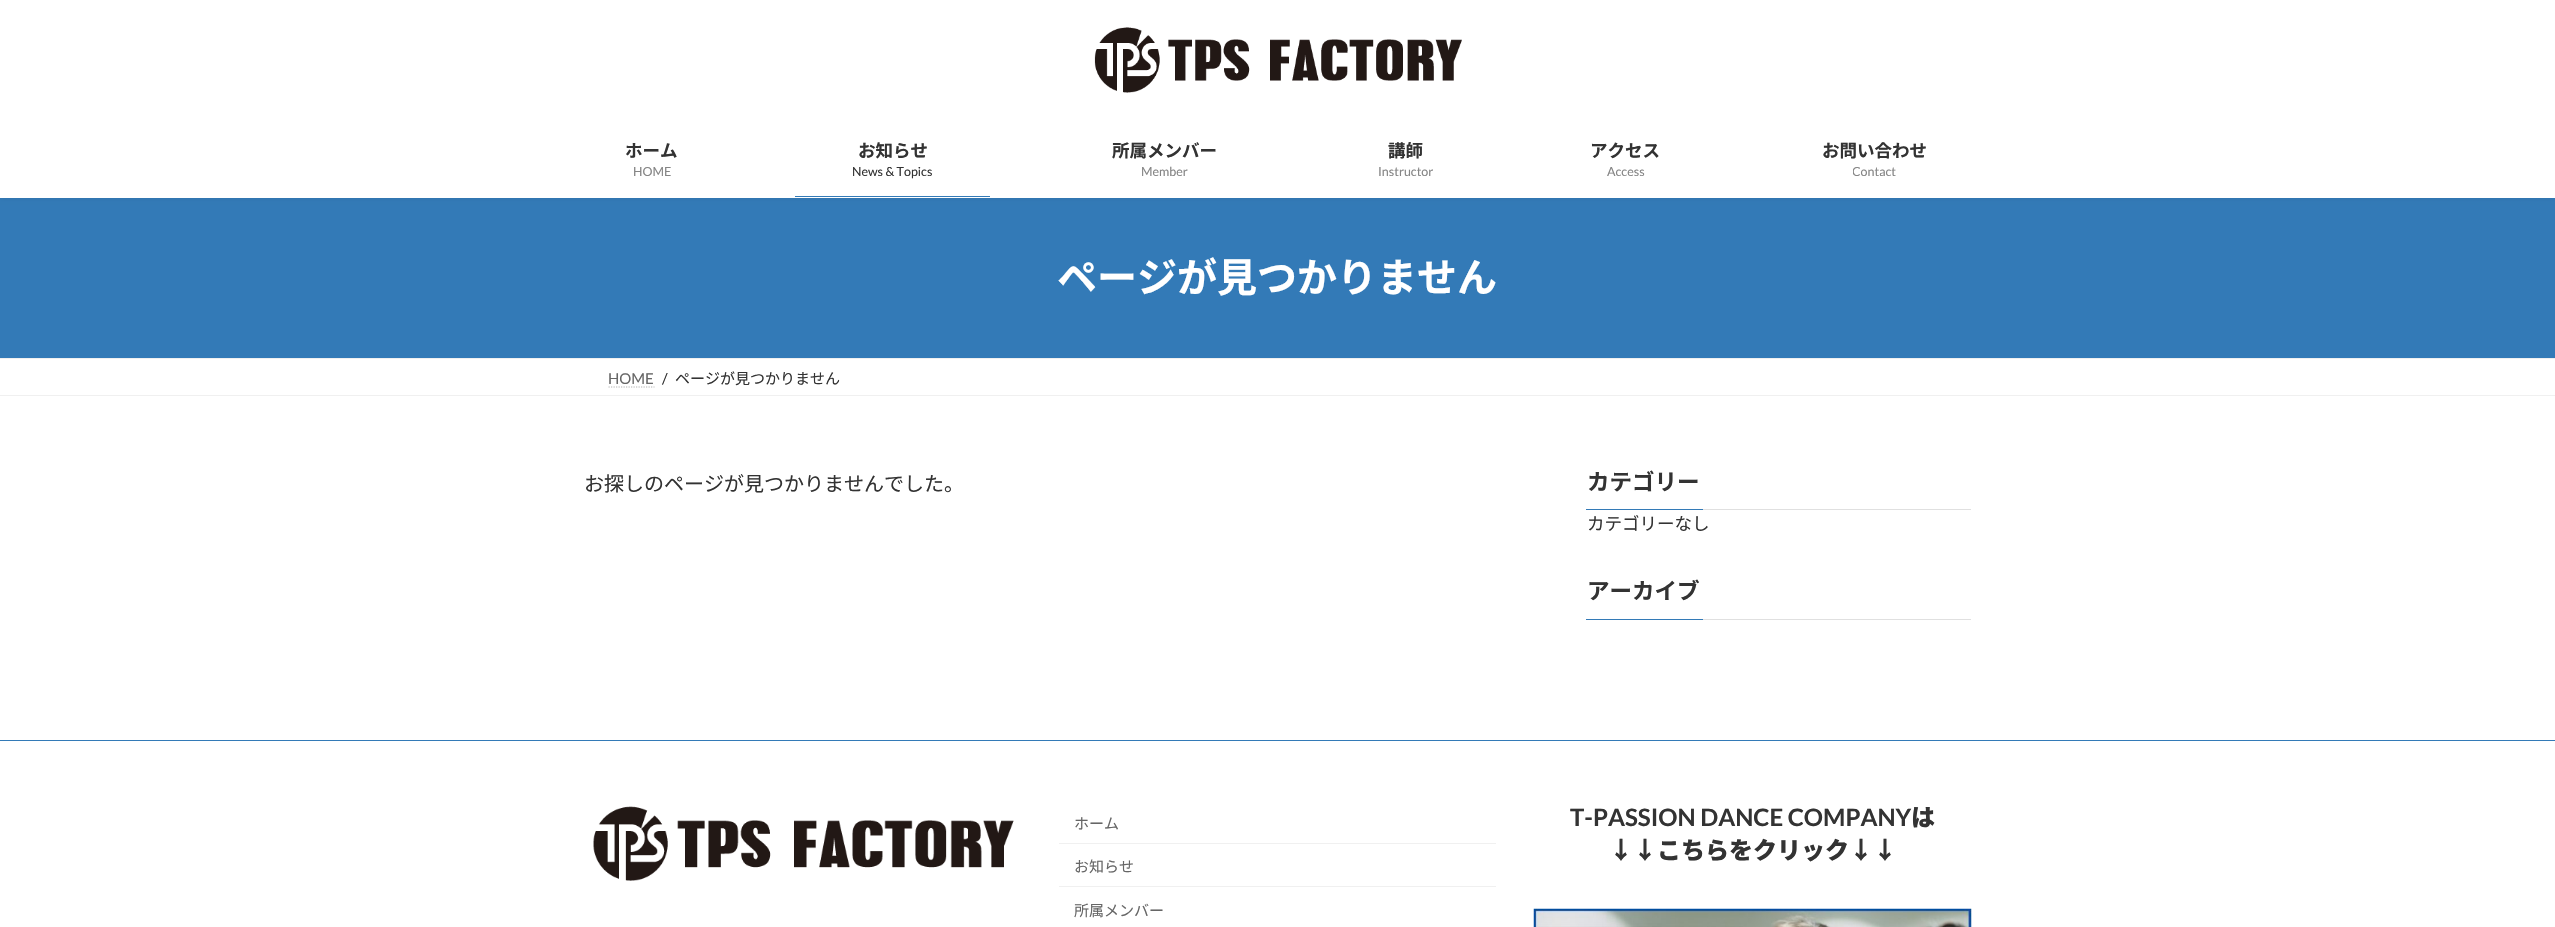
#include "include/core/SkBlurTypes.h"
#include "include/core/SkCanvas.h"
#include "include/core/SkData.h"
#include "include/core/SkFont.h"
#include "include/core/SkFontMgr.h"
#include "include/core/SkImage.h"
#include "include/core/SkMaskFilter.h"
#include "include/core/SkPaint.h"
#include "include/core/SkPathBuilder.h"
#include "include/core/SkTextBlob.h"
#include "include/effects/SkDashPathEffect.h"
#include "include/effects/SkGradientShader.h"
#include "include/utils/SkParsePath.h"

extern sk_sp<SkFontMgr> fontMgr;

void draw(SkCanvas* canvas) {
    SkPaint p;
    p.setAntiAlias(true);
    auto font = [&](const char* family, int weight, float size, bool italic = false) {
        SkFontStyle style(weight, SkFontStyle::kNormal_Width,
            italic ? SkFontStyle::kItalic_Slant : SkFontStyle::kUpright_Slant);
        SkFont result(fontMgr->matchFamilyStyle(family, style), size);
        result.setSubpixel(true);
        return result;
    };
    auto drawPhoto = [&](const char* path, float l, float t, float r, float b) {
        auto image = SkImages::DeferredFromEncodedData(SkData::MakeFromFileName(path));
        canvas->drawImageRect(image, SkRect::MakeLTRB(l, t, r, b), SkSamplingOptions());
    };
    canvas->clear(0xFFFFFFFF);
    p.setColor(0xFF337AB7);
    canvas->drawRect(SkRect::MakeLTRB(0, 198, 2555, 358), p);
    p.setColor(0x0D000000);
    p.setMaskFilter(SkMaskFilter::MakeBlur(kNormal_SkBlurStyle, 2));
    canvas->drawRect(SkRect::MakeLTRB(0, 1, 2555, 199), p);
    p.setMaskFilter(nullptr);
    p.setColor(0xFFFFFFFF);
    canvas->drawRect(SkRect::MakeLTRB(0, 0, 2555, 198), p);
    drawPhoto("media/1.png", 1094, 27, 1462, 93);
    auto font1 = font("Noto Sans JP", 700, 17.5f);
    p.setColor(0xFF333333);
    canvas->drawString("ホーム", 625, 157, font1, p);
    auto font2 = font("Lato", 400, 12.5f);
    p.setColor(0xFF858585);
    canvas->drawString("HOME", 633, 176, font2, p);
    p.setColor(0xFF333333);
    canvas->drawString("お知らせ", 858, 157, font1, p);
    canvas->drawString("News & Topics", 852, 176, font2, p);
    p.setColor(0xFF337AB7);
    canvas->drawRect(SkRect::MakeLTRB(795, 196, 990, 197), p);
    p.setColor(0xFF333333);
    canvas->drawString("所属メンバー", 1112, 157, font1, p);
    p.setColor(0xFF858585);
    canvas->drawString("Member", 1141, 176, font2, p);
    p.setColor(0xFF333333);
    canvas->drawString("講師", 1388, 157, font1, p);
    p.setColor(0xFF858585);
    canvas->drawString("Instructor", 1378, 176, font2, p);
    p.setColor(0xFF333333);
    canvas->drawString("アクセス", 1590, 157, font1, p);
    p.setColor(0xFF858585);
    canvas->drawString("Access", 1607, 176, font2, p);
    p.setColor(0xFF333333);
    canvas->drawString("お問い合わせ", 1822, 157, font1, p);
    canvas->save();
    canvas->clipRect(SkRect::MakeLTRB(1853, 163, 1896, 180));
    p.setColor(0xFF858585);
    canvas->drawString("Contact", 1852, 176, font2, p);
    canvas->restore();
    auto font3 = font("Noto Sans JP", 700, 40);
    p.setColor(0xFFFFFFFF);
    canvas->drawString("ページが見つかりません", 1057, 292, font3, p);
    p.setColor(0xFFF0F0F0);
    canvas->drawRect(SkRect::MakeLTRB(0, 358, 2555, 359), p);
    canvas->drawRect(SkRect::MakeLTRB(0, 395, 2555, 396), p);
    auto font4 = font("Lato", 400, 15);
    p.setColor(0xFF666666);
    canvas->drawString("HOME", 608, 384, font4, p);
    p.setStyle(SkPaint::kStroke_Style);
    p.setStrokeWidth(1.2f);
    p.setColor(0xFFB3B3B3);
    p.setPathEffect(SkDashPathEffect::Make({{1.25f, 1.25f}}, 0));
    canvas->drawPath(SkPathBuilder().moveTo(608.5f, 387).lineTo(654.5f, 387).detach(), p);
    p.setPathEffect(nullptr);
    p.setStyle(SkPaint::kFill_Style);
    p.setColor(0xFF333333);
    canvas->drawString("/", 662, 384, font4, p);
    auto font5 = font("Noto Sans JP", 400, 15);
    canvas->drawString("ページが見つかりません", 675, 384, font5, p);
    auto font6 = font("Noto Sans JP", 400, 20);
    canvas->drawString("お探しのページが見つかりませんでした。", 584, 491, font6, p);
    p.setColor(0xFFE0E0E0);
    canvas->drawRect(SkRect::MakeLTRB(1703, 509, 1971, 510), p);
    auto font7 = font("Noto Sans JP", 700, 22.5f);
    p.setColor(0xFF333333);
    canvas->drawString("カテゴリー", 1587, 490, font7, p);
    p.setColor(0xFF337AB7);
    canvas->drawRect(SkRect::MakeLTRB(1586, 509, 1703, 510), p);
    auto font8 = font("Noto Sans JP", 400, 17.5f);
    p.setColor(0xFF333333);
    canvas->drawString("カテゴリーなし", 1587, 530, font8, p);
    p.setColor(0xFFE0E0E0);
    canvas->drawRect(SkRect::MakeLTRB(1703, 619, 1971, 620), p);
    p.setColor(0xFF333333);
    canvas->drawString("アーカイブ", 1587, 599, font7, p);
    p.setColor(0xFF337AB7);
    canvas->drawRect(SkRect::MakeLTRB(1586, 619, 1703, 620), p);
    canvas->drawRect(SkRect::MakeLTRB(0, 740, 2555, 741), p);
    drawPhoto("media/2.png", 593, 806, 1014, 881);
    p.setColor(0xFFF0F0F0);
    canvas->drawRect(SkRect::MakeLTRB(1059, 843, 1496, 844), p);
    p.setColor(0xFF666666);
    canvas->drawString("ホーム", 1074, 829, font5, p);
    p.setColor(0xFFF0F0F0);
    canvas->drawRect(SkRect::MakeLTRB(1059, 886, 1496, 887), p);
    p.setColor(0xFF666666);
    canvas->drawString("お知らせ", 1074, 872, font5, p);
    canvas->drawString("所属メンバー", 1074, 916, font5, p);
    auto font9 = font("Lato", 700, 24);
    p.setColor(0xFF333333);
    canvas->drawString("T-PASSION DANCE COMPANY", 1570, 826, font9, p);
    auto font10 = font("Noto Sans JP", 900, 24);
    canvas->drawString("は", 1911, 826, font10, p);
    canvas->drawString("↓↓こちらをクリック↓↓", 1609, 859, font10, p);
    drawPhoto("media/3.png", 1533, 908, 1972, 927);
}
